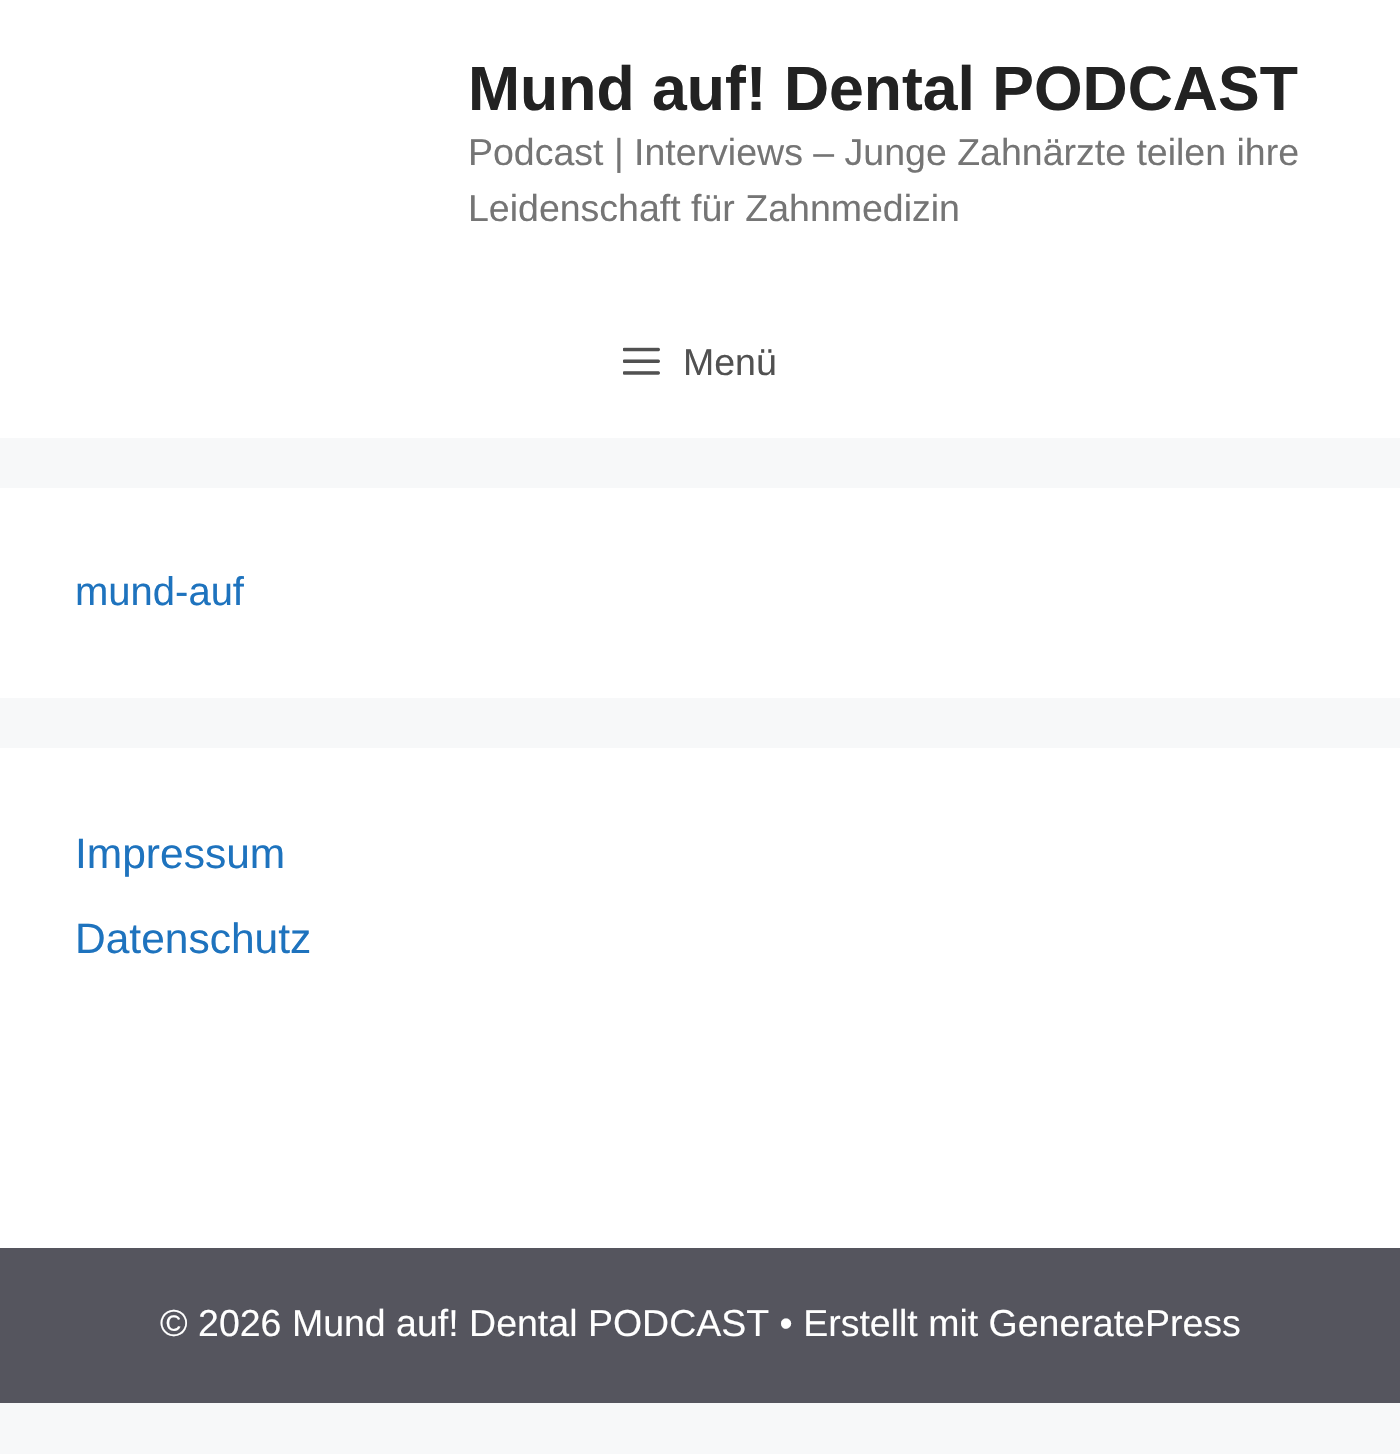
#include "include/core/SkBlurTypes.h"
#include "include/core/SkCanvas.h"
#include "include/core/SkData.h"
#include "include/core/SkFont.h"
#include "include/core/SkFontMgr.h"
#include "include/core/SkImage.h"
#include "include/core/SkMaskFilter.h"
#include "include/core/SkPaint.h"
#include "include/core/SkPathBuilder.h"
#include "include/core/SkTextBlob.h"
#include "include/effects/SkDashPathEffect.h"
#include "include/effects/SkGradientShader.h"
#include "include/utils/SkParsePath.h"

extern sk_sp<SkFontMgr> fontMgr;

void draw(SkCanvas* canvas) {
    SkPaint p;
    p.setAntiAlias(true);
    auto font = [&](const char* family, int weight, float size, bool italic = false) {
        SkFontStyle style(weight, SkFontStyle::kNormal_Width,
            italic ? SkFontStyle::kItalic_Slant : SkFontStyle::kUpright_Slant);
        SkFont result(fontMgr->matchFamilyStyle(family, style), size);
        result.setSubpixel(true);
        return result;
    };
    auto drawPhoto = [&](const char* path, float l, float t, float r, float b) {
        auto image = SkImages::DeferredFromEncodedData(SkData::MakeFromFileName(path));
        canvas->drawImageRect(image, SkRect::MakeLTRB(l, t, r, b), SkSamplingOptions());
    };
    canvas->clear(0xFFF7F8F9);
    p.setColor(0xFFFFFFFF);
    canvas->drawRect(SkRect::MakeLTRB(0, 0, 1400, 438), p);
    auto font1 = font("Liberation Sans", 700, 62.5f);
    p.setColor(0xFF222222);
    canvas->drawString("Mund auf! Dental PODCAST", 468, 110, font1, p);
    auto font2 = font("Liberation Sans", 400, 37.5f);
    p.setColor(0xFF757575);
    canvas->drawString("Podcast | Interviews – Junge Zahnärzte teilen ihre", 468, 165, font2, p);
    canvas->drawString("Leidenschaft für Zahnmedizin", 468, 221, font2, p);
    drawPhoto("media/1.png", 623, 347, 660, 375);
    p.setColor(0xFF515151);
    canvas->drawString("Menü", 683, 375, font2, p);
    p.setColor(0xFFFFFFFF);
    canvas->drawRect(SkRect::MakeLTRB(0, 488, 1400, 698), p);
    auto font3 = font("Liberation Sans", 400, 40);
    p.setColor(0xFF1E73BE);
    canvas->drawString("mund-auf", 75, 605, font3, p);
    p.setColor(0xFFFFFFFF);
    canvas->drawRect(SkRect::MakeLTRB(0, 748, 1400, 1248), p);
    auto font4 = font("Liberation Sans", 400, 42.5f);
    p.setColor(0xFF1E73BE);
    canvas->drawString("Impressum", 75, 868, font4, p);
    canvas->drawString("Datenschutz", 75, 953, font4, p);
    p.setColor(0xFF55555E);
    canvas->drawRect(SkRect::MakeLTRB(0, 1248, 1400, 1403), p);
    p.setColor(0xFFFFFFFF);
    canvas->drawString("© 2026 Mund auf! Dental PODCAST • Erstellt mit GeneratePress", 160, 1336, font2, p);
}
